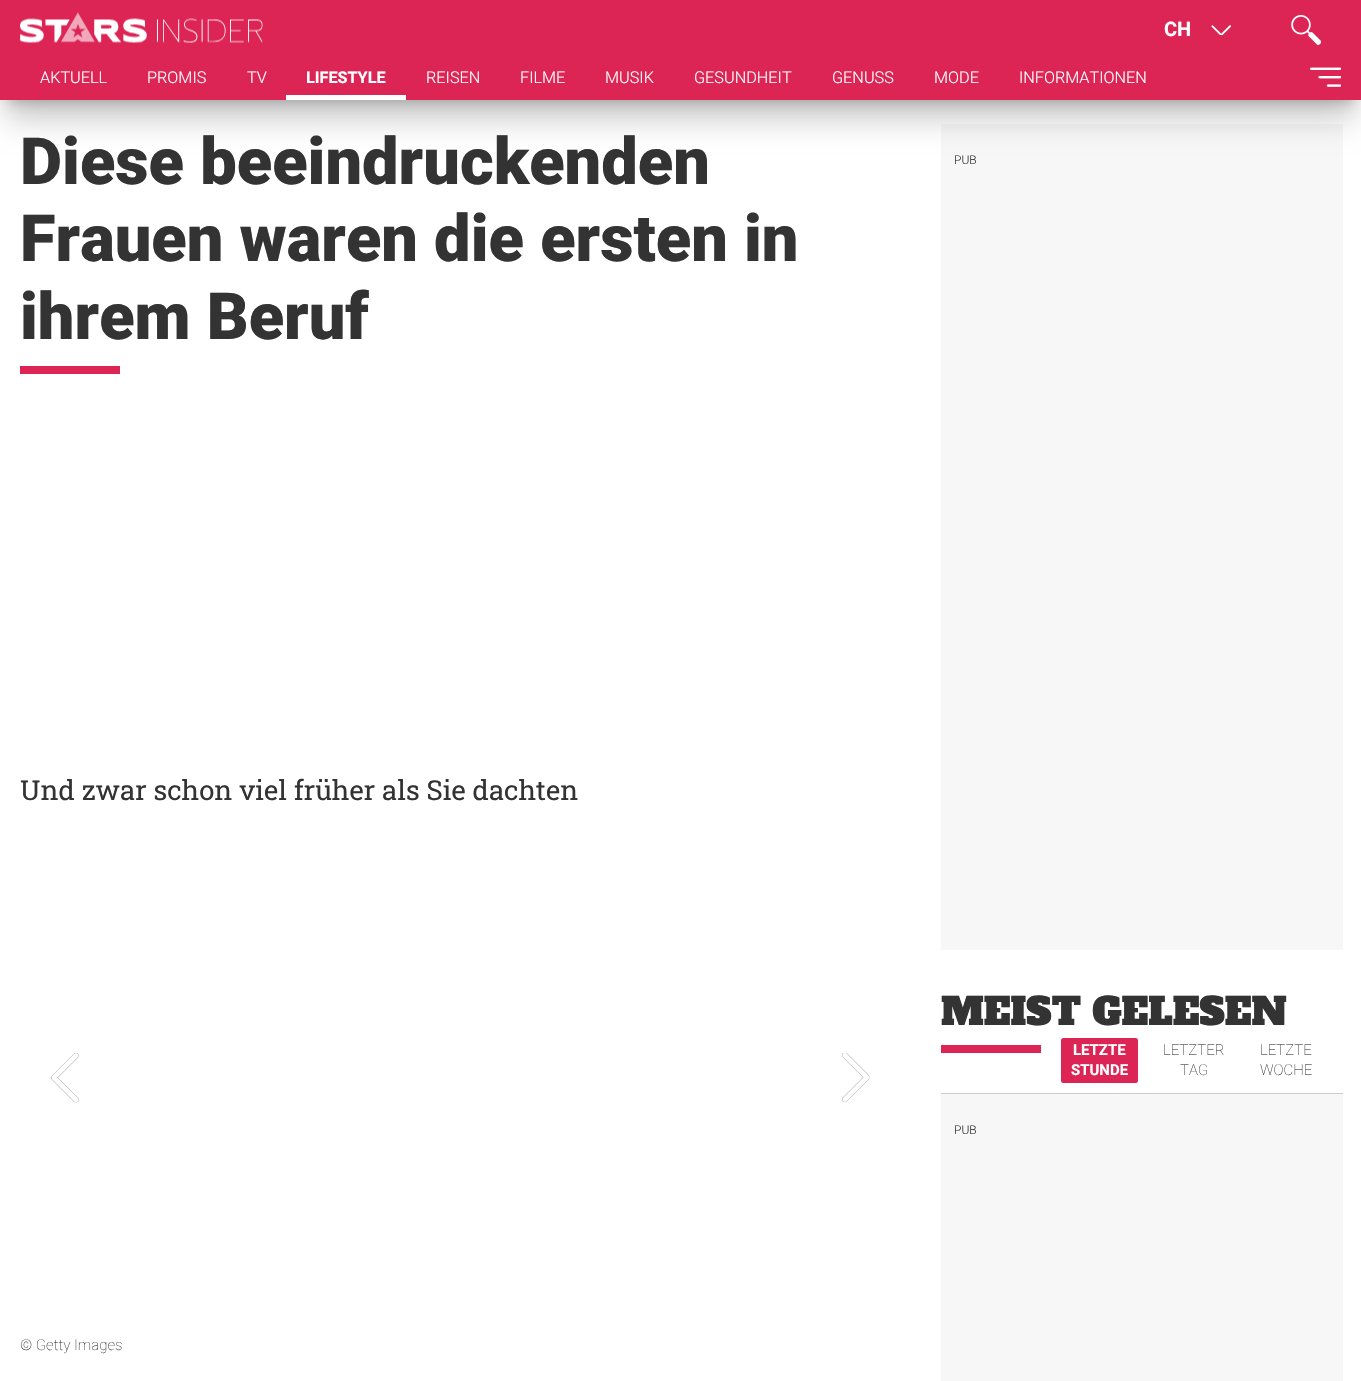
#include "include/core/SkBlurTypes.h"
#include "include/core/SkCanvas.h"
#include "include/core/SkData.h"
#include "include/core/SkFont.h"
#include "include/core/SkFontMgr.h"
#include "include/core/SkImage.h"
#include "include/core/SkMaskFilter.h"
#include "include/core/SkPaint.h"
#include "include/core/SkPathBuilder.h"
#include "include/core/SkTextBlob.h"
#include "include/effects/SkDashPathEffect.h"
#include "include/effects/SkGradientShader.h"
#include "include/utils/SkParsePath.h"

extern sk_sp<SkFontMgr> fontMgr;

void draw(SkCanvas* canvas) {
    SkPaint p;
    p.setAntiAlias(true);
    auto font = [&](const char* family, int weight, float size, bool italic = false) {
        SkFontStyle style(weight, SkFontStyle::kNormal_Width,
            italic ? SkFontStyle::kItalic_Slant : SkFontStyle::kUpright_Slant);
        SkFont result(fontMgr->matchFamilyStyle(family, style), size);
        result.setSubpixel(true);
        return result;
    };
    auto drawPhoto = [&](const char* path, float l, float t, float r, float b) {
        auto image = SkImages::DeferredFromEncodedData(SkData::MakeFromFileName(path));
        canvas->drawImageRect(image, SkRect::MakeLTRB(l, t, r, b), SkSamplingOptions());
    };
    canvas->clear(0xFFFFFFFF);
    p.setColor(0x33000000);
    p.setMaskFilter(SkMaskFilter::MakeBlur(kNormal_SkBlurStyle, 6));
    canvas->drawRect(SkRect::MakeLTRB(8, 18, 1354, 103), p);
    p.setMaskFilter(nullptr);
    p.setColor(0xFFF7F7F7);
    canvas->drawRect(SkRect::MakeLTRB(941, 124, 1343, 950), p);
    p.setColor(0x33000000);
    p.setMaskFilter(SkMaskFilter::MakeBlur(kNormal_SkBlurStyle, 15.5f));
    canvas->drawRect(SkRect::MakeLTRB(6, 31, 1355, 119), p);
    p.setMaskFilter(nullptr);
    p.setColor(0xFFDC2555);
    canvas->drawRect(SkRect::MakeLTRB(0, 0, 1361, 100), p);
    drawPhoto("media/1.png", 20, 12, 263, 43);
    auto font1 = font("Roboto", 700, 20);
    p.setColor(0xFFFFFFFF);
    canvas->drawString("CH", 1164, 36, font1, p);
    drawPhoto("media/2.png", 1211, 25, 1231, 35);
    drawPhoto("media/3.png", 1291, 15, 1321, 45);
    auto font2 = font("Roboto", 300, 16.25f);
    {
        const struct { const char* s; float x, y; } items[] = {
            {"AKTUELL", 40, 83},
            {"PROMIS", 147, 83},
            {"TV", 247, 83},
        };
        for (auto [s, x, y] : items) {
            canvas->drawString(s, x, y, font2, p);
        }
    }
    auto font3 = font("Roboto", 700, 16.25f);
    canvas->drawString("LIFESTYLE", 306, 83, font3, p);
    canvas->drawRect(SkRect::MakeLTRB(286, 95, 406, 100), p);
    {
        const struct { const char* s; float x, y; } items[] = {
            {"REISEN", 426, 83},
            {"FILME", 520, 83},
            {"MUSIK", 605, 83},
            {"GESUNDHEIT", 694, 83},
            {"GENUSS", 832, 83},
            {"MODE", 934, 83},
            {"INFORMATIONEN", 1019, 83},
        };
        for (auto [s, x, y] : items) {
            canvas->drawString(s, x, y, font2, p);
        }
    }
    drawPhoto("media/4.png", 1310, 67, 1341, 87);
    auto font4 = font("Roboto", 900, 65);
    p.setColor(0xFF333333);
    {
        const struct { const char* s; float x, y; } items[] = {
            {"Diese beeindruckenden", 20, 184},
            {"Frauen waren die ersten in", 20, 261},
            {"ihrem Beruf", 20, 339},
        };
        for (auto [s, x, y] : items) {
            canvas->drawString(s, x, y, font4, p);
        }
    }
    p.setColor(0xFFDC2555);
    canvas->drawRect(SkRect::MakeLTRB(20, 366, 120, 374), p);
    auto font5 = font("Roboto Slab", 400, 27.5f);
    p.setColor(0xFF333333);
    canvas->drawString("Und zwar schon viel früher als Sie dachten", 20, 800, font5, p);
    drawPhoto("media/5.png", 51, 1053, 79, 1103);
    drawPhoto("media/6.png", 842, 1053, 870, 1103);
    auto font6 = font("Roboto", 100, 15);
    canvas->drawString("© Getty Images", 20, 1350, font6, p);
    auto font7 = font("Roboto", 300, 12);
    canvas->drawString("PUB", 954, 164, font7, p);
    auto font8 = font("Alfa Slab One", 400, 37.5f);
    canvas->drawString("MEIST GELESEN", 941, 1025, font8, p);
    p.setColor(0xFFDC2555);
    canvas->drawRect(SkRect::MakeLTRB(941, 1045, 1041, 1053), p);
    p.setColor(0xFFCCCCCC);
    canvas->drawRect(SkRect::MakeLTRB(941, 1093, 1343, 1094), p);
    p.setColor(0xFFDC2555);
    canvas->drawRoundRect(SkRect::MakeLTRB(1061, 1038, 1138, 1083), 2.5f, 2.5f, p);
    auto font9 = font("Roboto", 700, 15);
    p.setColor(0xFFFFFFFF);
    canvas->drawString("LETZTE", 1073, 1055, font9, p);
    canvas->drawString("STUNDE", 1071, 1075, font9, p);
    p.setColor(0xFF333333);
    {
        const struct { const char* s; float x, y; } items[] = {
            {"LETZTER", 1163, 1055},
            {"TAG", 1180, 1075},
            {"LETZTE", 1260, 1055},
            {"WOCHE", 1260, 1075},
        };
        for (auto [s, x, y] : items) {
            canvas->drawString(s, x, y, font6, p);
        }
    }
    p.setColor(0xFFF7F7F7);
    canvas->drawRect(SkRect::MakeLTRB(941, 1094, 1343, 1381), p);
    p.setColor(0xFF333333);
    canvas->drawString("PUB", 954, 1134, font7, p);
}
